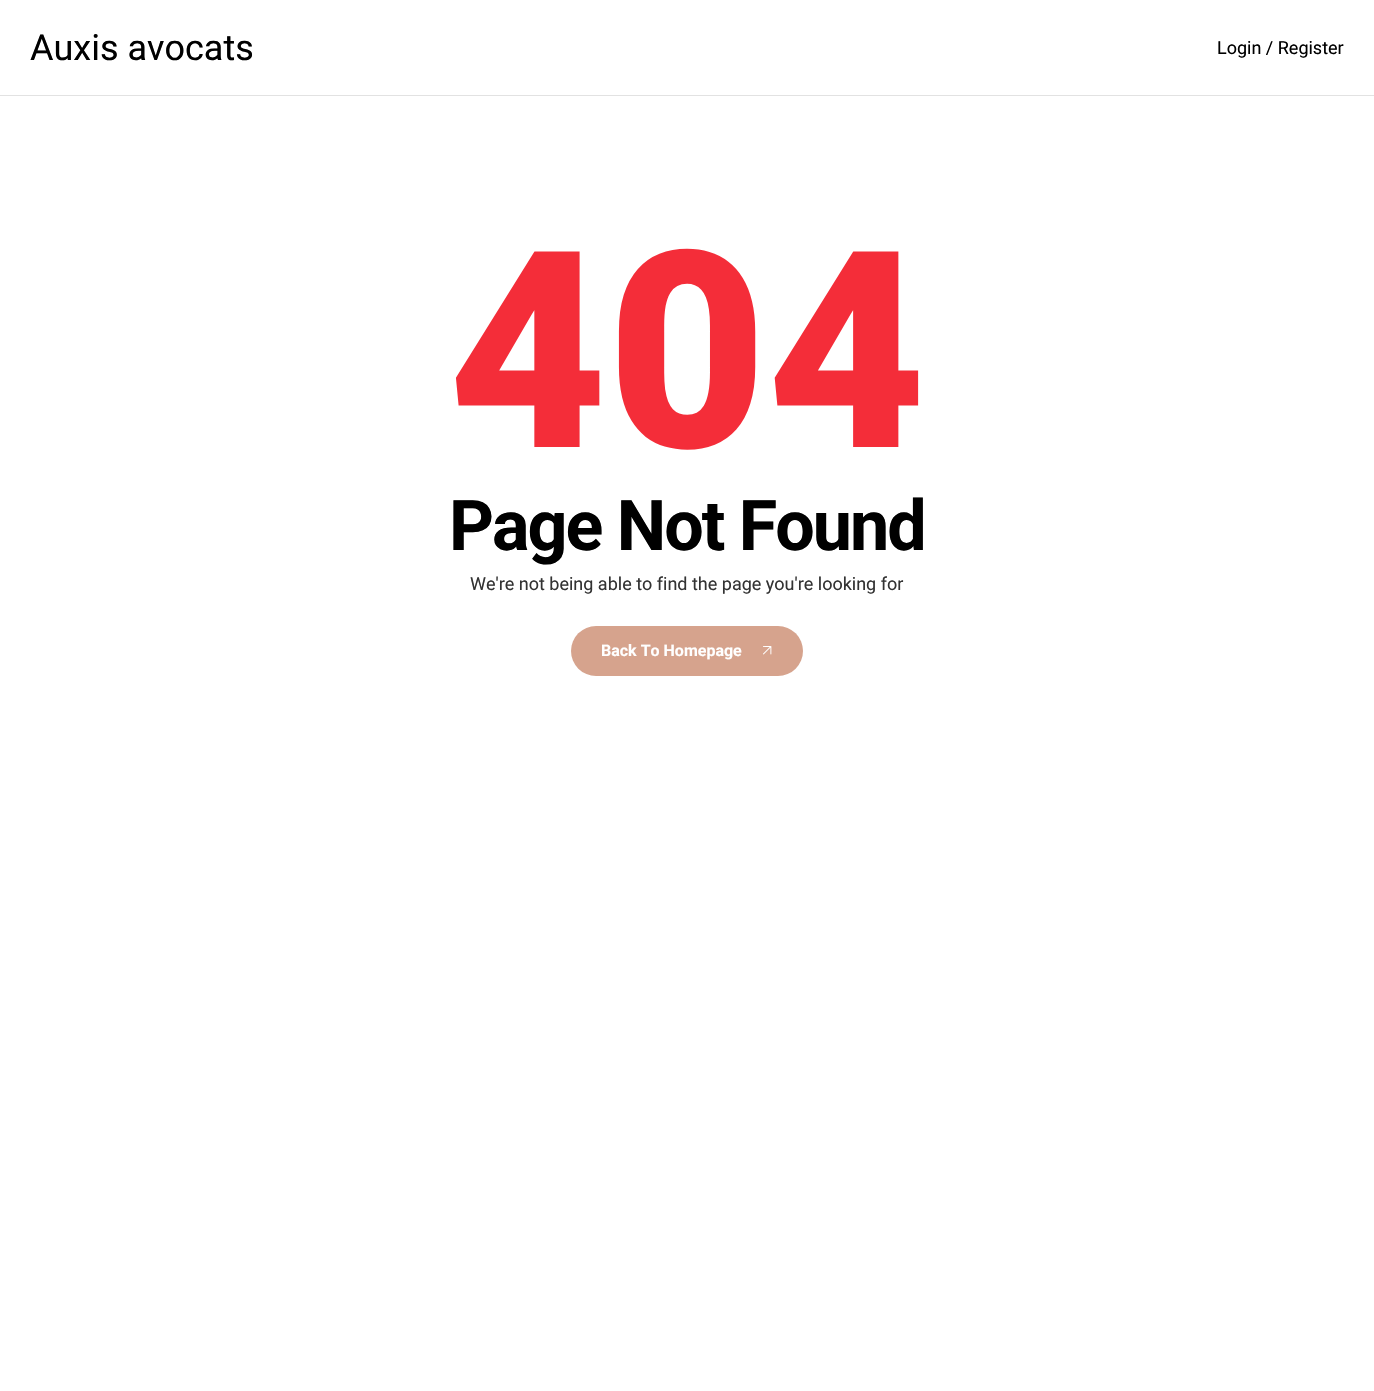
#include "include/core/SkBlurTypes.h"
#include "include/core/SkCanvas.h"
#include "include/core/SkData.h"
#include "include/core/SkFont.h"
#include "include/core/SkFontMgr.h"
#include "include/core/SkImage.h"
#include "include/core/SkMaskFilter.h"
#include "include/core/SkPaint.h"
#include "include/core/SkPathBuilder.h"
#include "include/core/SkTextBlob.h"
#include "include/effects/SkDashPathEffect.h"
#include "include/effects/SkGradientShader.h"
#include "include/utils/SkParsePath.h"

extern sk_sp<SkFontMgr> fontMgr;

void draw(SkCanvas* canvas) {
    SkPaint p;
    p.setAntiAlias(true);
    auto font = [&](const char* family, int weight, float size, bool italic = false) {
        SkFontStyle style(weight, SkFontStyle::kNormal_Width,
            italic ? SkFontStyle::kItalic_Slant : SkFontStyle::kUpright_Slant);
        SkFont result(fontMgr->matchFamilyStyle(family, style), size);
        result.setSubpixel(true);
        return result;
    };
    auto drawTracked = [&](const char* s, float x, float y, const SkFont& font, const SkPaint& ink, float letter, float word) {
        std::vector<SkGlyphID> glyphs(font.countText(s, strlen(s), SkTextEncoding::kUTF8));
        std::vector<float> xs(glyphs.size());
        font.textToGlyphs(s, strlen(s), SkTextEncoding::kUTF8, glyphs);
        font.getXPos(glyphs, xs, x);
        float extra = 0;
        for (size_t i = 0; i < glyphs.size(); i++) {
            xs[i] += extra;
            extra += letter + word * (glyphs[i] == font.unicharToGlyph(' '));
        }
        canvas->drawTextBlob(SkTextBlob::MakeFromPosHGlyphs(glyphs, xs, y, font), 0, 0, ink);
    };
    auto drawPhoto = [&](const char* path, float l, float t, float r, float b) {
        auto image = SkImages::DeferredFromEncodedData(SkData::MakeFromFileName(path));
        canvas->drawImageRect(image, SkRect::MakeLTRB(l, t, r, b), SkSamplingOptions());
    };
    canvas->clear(0xFFFFFFFF);
    p.setColor(0xFFE2E2E2);
    canvas->drawRect(SkRect::MakeLTRB(0, 95, 1374, 96), p);
    auto font1 = font("Roboto", 400, 36);
    p.setColor(0xFF000000);
    canvas->drawString("Auxis avocats", 30, 60, font1, p);
    auto font2 = font("Roboto", 400, 18);
    canvas->drawString("Login / Register", 1217, 54, font2, p);
    auto font3 = font("Roboto", 900, 275);
    p.setColor(0xFFF42D39);
    canvas->drawString("404", 448, 447, font3, p);
    auto font4 = font("Roboto", 700, 70);
    p.setColor(0xFF000000);
    drawTracked("Page Not Found", 449, 550, font4, p, -2, 0);
    p.setColor(0xFF333333);
    canvas->drawString("We're not being able to find the page you're looking for", 470, 590, font2, p);
    p.setColor(0xFFD6A38D);
    canvas->drawRoundRect(SkRect::MakeLTRB(571, 626, 803, 676), 25, 25, p);
    auto font5 = font("Roboto", 700, 16);
    p.setColor(0xFFFFFFFF);
    canvas->drawString("Back To Homepage", 601, 656, font5, p);
    drawPhoto("media/1.png", 763, 646, 772, 655);
}
